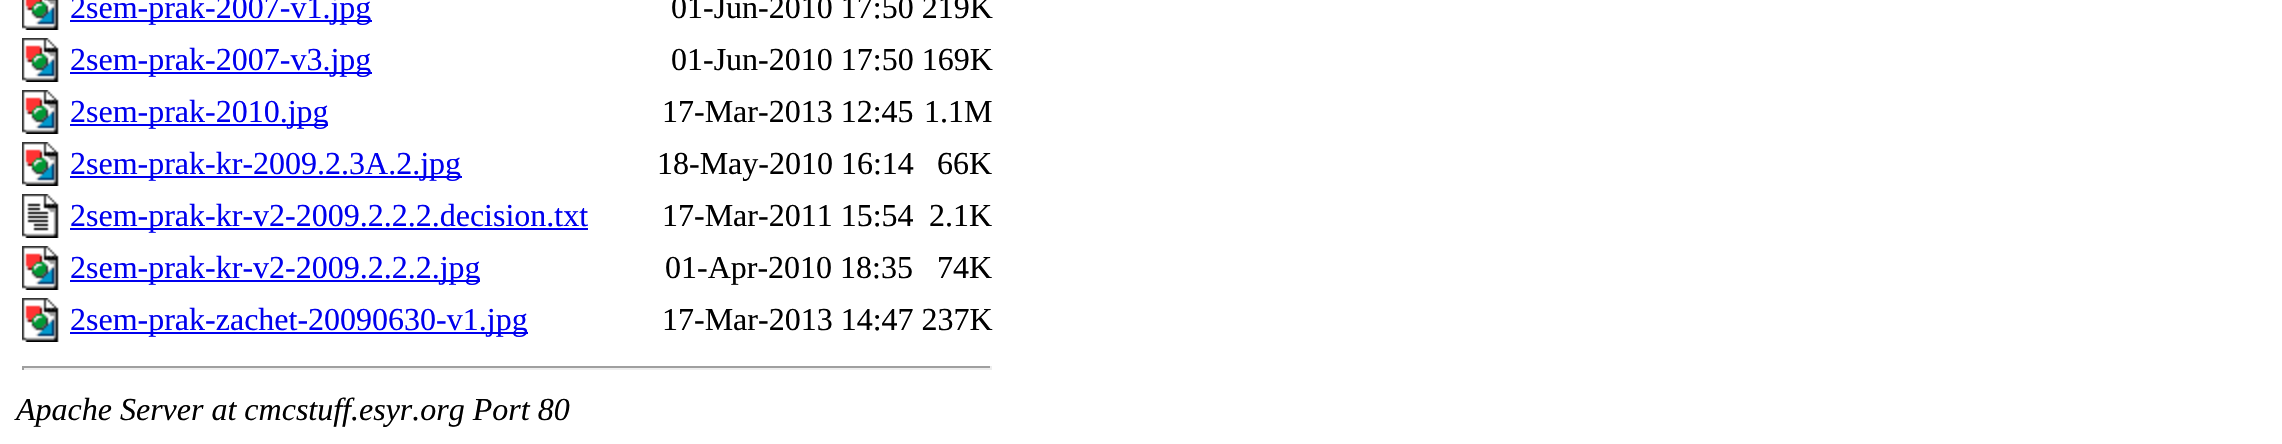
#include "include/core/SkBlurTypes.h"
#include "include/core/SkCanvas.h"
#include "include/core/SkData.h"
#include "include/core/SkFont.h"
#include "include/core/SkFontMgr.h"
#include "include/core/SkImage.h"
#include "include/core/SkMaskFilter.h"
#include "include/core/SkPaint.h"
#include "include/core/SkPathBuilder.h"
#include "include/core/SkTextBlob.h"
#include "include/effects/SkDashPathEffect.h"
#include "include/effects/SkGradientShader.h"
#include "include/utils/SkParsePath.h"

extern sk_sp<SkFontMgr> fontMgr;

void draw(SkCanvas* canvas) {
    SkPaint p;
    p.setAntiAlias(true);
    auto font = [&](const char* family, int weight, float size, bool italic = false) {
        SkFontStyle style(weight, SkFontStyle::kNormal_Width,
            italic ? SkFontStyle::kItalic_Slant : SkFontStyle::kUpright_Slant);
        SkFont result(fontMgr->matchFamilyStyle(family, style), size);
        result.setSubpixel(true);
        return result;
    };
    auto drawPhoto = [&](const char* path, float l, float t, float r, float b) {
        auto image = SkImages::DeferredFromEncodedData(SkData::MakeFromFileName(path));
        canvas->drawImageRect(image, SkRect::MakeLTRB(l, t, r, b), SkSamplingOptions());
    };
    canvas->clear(0xFFFFFFFF);
    drawPhoto("media/1.png", 22, 0, 59, 30);
    p.setColor(0xFF0000EE);
    canvas->drawRect(SkRect::MakeLTRB(70, 20, 372, 22), p);
    auto font1 = font("Liberation Serif", 400, 32);
    canvas->drawString("2sem-prak-2007-v1.jpg", 70, 18, font1, p);
    p.setColor(0xFF000000);
    canvas->drawString("01-Jun-2010 17:50 219K", 671, 18, font1, p);
    drawPhoto("media/2.png", 22, 38, 59, 82);
    p.setColor(0xFF0000EE);
    canvas->drawRect(SkRect::MakeLTRB(70, 72, 372, 74), p);
    canvas->drawString("2sem-prak-2007-v3.jpg", 70, 70, font1, p);
    p.setColor(0xFF000000);
    canvas->drawString("01-Jun-2010 17:50 169K", 671, 70, font1, p);
    drawPhoto("media/2.png", 22, 90, 59, 134);
    p.setColor(0xFF0000EE);
    canvas->drawRect(SkRect::MakeLTRB(70, 124, 328, 126), p);
    canvas->drawString("2sem-prak-2010.jpg", 70, 122, font1, p);
    p.setColor(0xFF000000);
    canvas->drawString("17-Mar-2013 12:45", 662, 122, font1, p);
    canvas->drawString("1.1M", 924, 122, font1, p);
    drawPhoto("media/2.png", 22, 142, 59, 186);
    p.setColor(0xFF0000EE);
    canvas->drawRect(SkRect::MakeLTRB(70, 176, 462, 178), p);
    canvas->drawString("2sem-prak-kr-2009.2.3A.2.jpg", 70, 174, font1, p);
    p.setColor(0xFF000000);
    canvas->drawString("18-May-2010 16:14", 657, 174, font1, p);
    canvas->drawString("66K", 937, 174, font1, p);
    drawPhoto("media/3.png", 22, 194, 59, 238);
    p.setColor(0xFF0000EE);
    canvas->drawRect(SkRect::MakeLTRB(70, 228, 588, 230), p);
    canvas->drawString("2sem-prak-kr-v2-2009.2.2.2.decision.txt", 70, 226, font1, p);
    p.setColor(0xFF000000);
    canvas->drawString("17-Mar-2011 15:54", 662, 226, font1, p);
    canvas->drawString("2.1K", 929, 226, font1, p);
    drawPhoto("media/2.png", 22, 246, 59, 290);
    p.setColor(0xFF0000EE);
    canvas->drawRect(SkRect::MakeLTRB(70, 280, 480, 282), p);
    canvas->drawString("2sem-prak-kr-v2-2009.2.2.2.jpg", 70, 278, font1, p);
    p.setColor(0xFF000000);
    canvas->drawString("01-Apr-2010 18:35", 665, 278, font1, p);
    canvas->drawString("74K", 937, 278, font1, p);
    drawPhoto("media/2.png", 22, 298, 59, 342);
    p.setColor(0xFF0000EE);
    canvas->drawRect(SkRect::MakeLTRB(70, 332, 528, 334), p);
    canvas->drawString("2sem-prak-zachet-20090630-v1.jpg", 70, 330, font1, p);
    p.setColor(0xFF000000);
    canvas->drawString("17-Mar-2013 14:47 237K", 662, 330, font1, p);
    {
        const struct { float l, t, r, b; SkColor color; } items[] = {
            {22, 366, 992, 368, 0xFF9F9F9F},
            {990, 366, 992, 370, 0xFFEEEEEE},
            {22, 368, 992, 370, 0xFFEEEEEE},
            {22, 366, 24, 370, 0xFF9F9F9F},
        };
        for (auto [l, t, r, b, color] : items) {
            p.setColor(color);
            canvas->drawRect(SkRect::MakeLTRB(l, t, r, b), p);
        }
    }
    auto font2 = font("Liberation Serif", 400, 32, true);
    p.setColor(0xFF000000);
    canvas->drawString("Apache Server at cmcstuff.esyr.org Port 80", 16, 420, font2, p);
}
